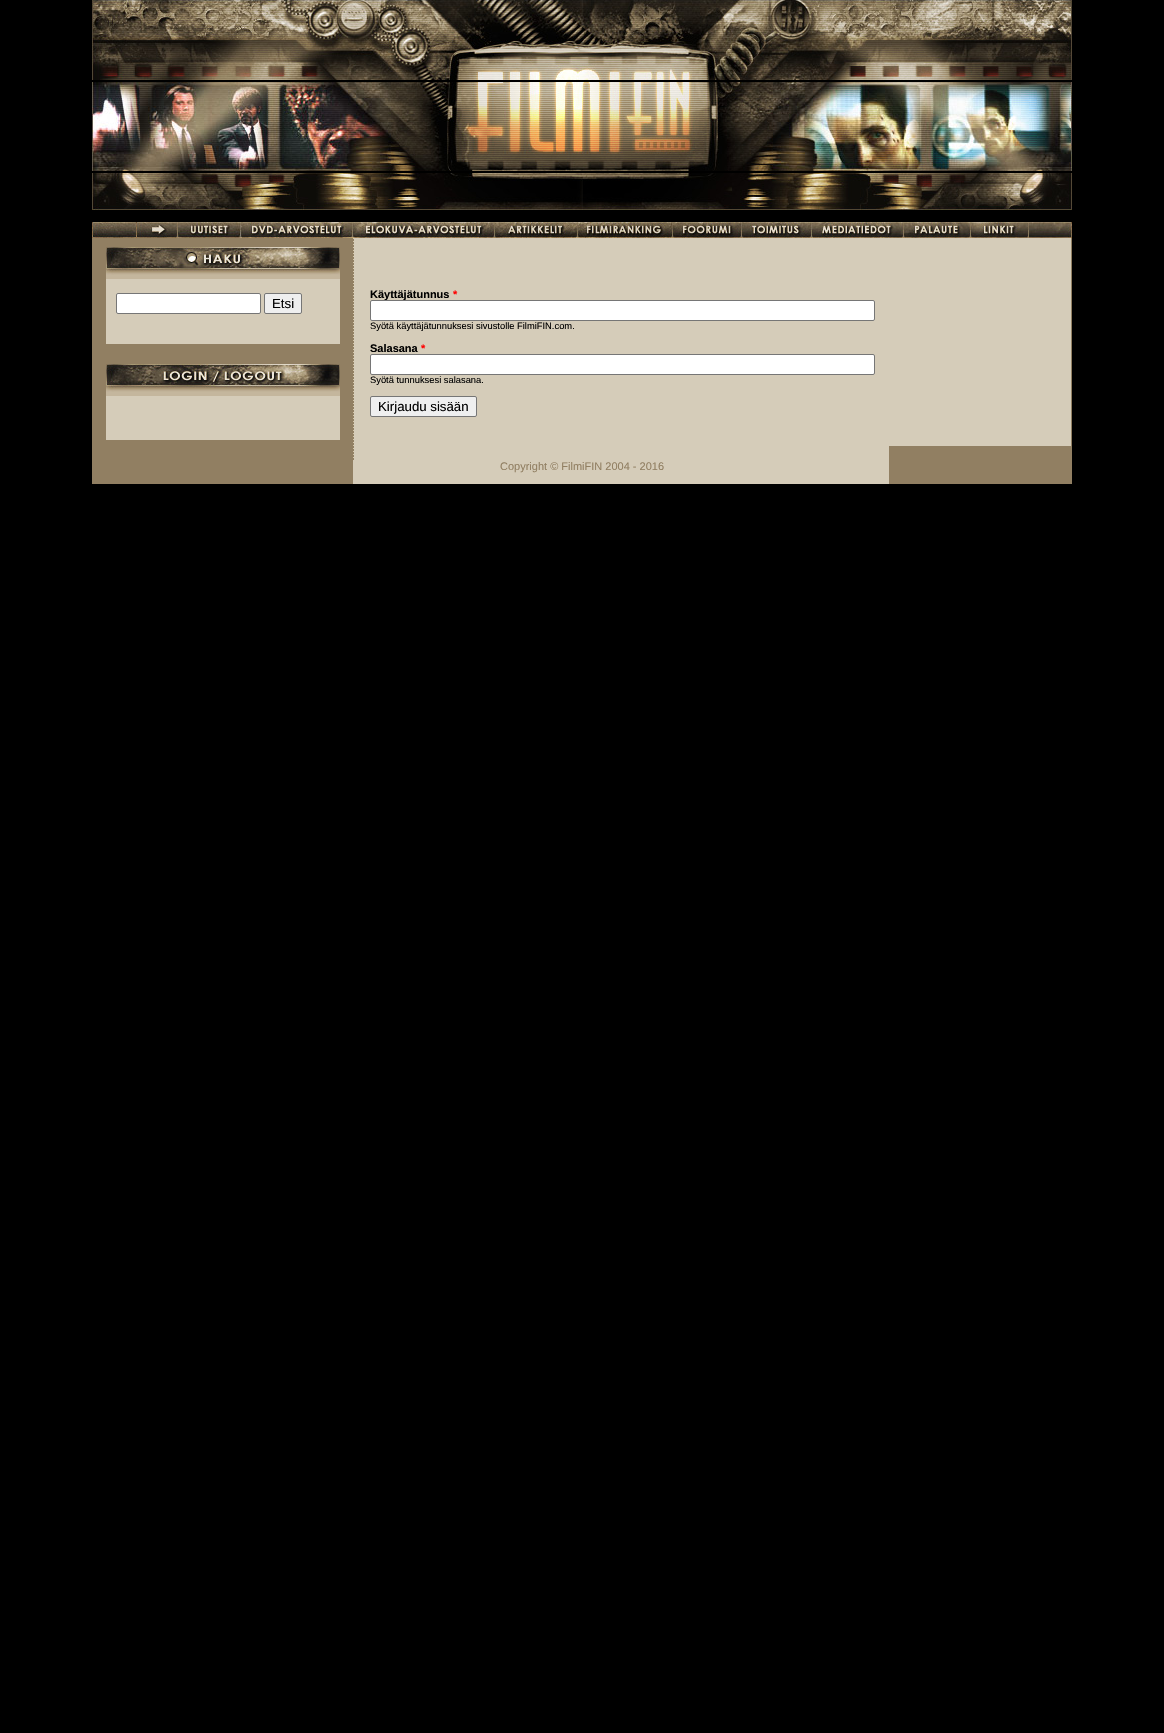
#include "include/core/SkBlurTypes.h"
#include "include/core/SkCanvas.h"
#include "include/core/SkData.h"
#include "include/core/SkFont.h"
#include "include/core/SkFontMgr.h"
#include "include/core/SkImage.h"
#include "include/core/SkMaskFilter.h"
#include "include/core/SkPaint.h"
#include "include/core/SkPathBuilder.h"
#include "include/core/SkTextBlob.h"
#include "include/effects/SkDashPathEffect.h"
#include "include/effects/SkGradientShader.h"
#include "include/utils/SkParsePath.h"

extern sk_sp<SkFontMgr> fontMgr;

void draw(SkCanvas* canvas) {
    SkPaint p;
    p.setAntiAlias(true);
    auto font = [&](const char* family, int weight, float size, bool italic = false) {
        SkFontStyle style(weight, SkFontStyle::kNormal_Width,
            italic ? SkFontStyle::kItalic_Slant : SkFontStyle::kUpright_Slant);
        SkFont result(fontMgr->matchFamilyStyle(family, style), size);
        result.setSubpixel(true);
        return result;
    };
    auto drawPhoto = [&](const char* path, float l, float t, float r, float b) {
        auto image = SkImages::DeferredFromEncodedData(SkData::MakeFromFileName(path));
        canvas->drawImageRect(image, SkRect::MakeLTRB(l, t, r, b), SkSamplingOptions());
    };
    canvas->clear(0xFF000000);
    drawPhoto("media/1.png", 92, 0, 1072, 80);
    drawPhoto("media/2.png", 92, 82, 391, 171);
    drawPhoto("media/3.png", 391, 82, 773, 171);
    drawPhoto("media/4.png", 773, 82, 1072, 171);
    drawPhoto("media/5.png", 92, 173, 1072, 210);
    drawPhoto("media/6.png", 92, 222, 1072, 238);
    drawPhoto("media/7.png", 136, 222, 178, 238);
    drawPhoto("media/8.png", 178, 222, 241, 238);
    drawPhoto("media/9.png", 241, 222, 353, 238);
    drawPhoto("media/10.png", 353, 222, 495, 238);
    drawPhoto("media/11.png", 495, 222, 578, 238);
    drawPhoto("media/12.png", 578, 222, 673, 238);
    drawPhoto("media/13.png", 673, 222, 742, 238);
    drawPhoto("media/14.png", 742, 222, 812, 238);
    drawPhoto("media/15.png", 812, 222, 904, 238);
    drawPhoto("media/16.png", 904, 222, 971, 238);
    drawPhoto("media/17.png", 971, 222, 1029, 238);
    p.setColor(0xFF917F62);
    canvas->drawRect(SkRect::MakeLTRB(92, 238, 1072, 484), p);
    p.setColor(0xFFD5CCB9);
    canvas->drawRect(SkRect::MakeLTRB(353, 446, 889, 484), p);
    drawPhoto("media/18.png", 353, 238, 354, 460);
    canvas->drawRect(SkRect::MakeLTRB(106, 279, 340, 344), p);
    p.setColor(0xFFC4B69D);
    canvas->drawRect(SkRect::MakeLTRB(106, 275, 340, 279), p);
    drawPhoto("media/19.png", 106, 247, 340, 275);
    p.setColor(0xFFFFFFFF);
    canvas->drawRoundRect(SkRect::MakeLTRB(116.5f, 293.5f, 260.5f, 313.5f), 1.5f, 1.5f, p);
    p.setStyle(SkPaint::kStroke_Style);
    p.setStrokeWidth(1);
    p.setColor(0xFF767676);
    canvas->drawRoundRect(SkRect::MakeLTRB(116.5f, 293.5f, 260.5f, 313.5f), 1.5f, 1.5f, p);
    p.setStyle(SkPaint::kFill_Style);
    p.setColor(0xFFEFEFEF);
    canvas->drawRoundRect(SkRect::MakeLTRB(264.5f, 293.5f, 301.5f, 313.5f), 1.5f, 1.5f, p);
    p.setStyle(SkPaint::kStroke_Style);
    p.setColor(0xFF767676);
    canvas->drawRoundRect(SkRect::MakeLTRB(264.5f, 293.5f, 301.5f, 313.5f), 1.5f, 1.5f, p);
    auto font1 = font("Liberation Sans", 400, 13.25f);
    p.setStyle(SkPaint::kFill_Style);
    p.setColor(0xFF000000);
    canvas->drawString("Etsi", 272, 308, font1, p);
    p.setColor(0xFFD5CCB9);
    canvas->drawRect(SkRect::MakeLTRB(106, 396, 340, 440), p);
    p.setColor(0xFFC4B69D);
    canvas->drawRect(SkRect::MakeLTRB(106, 392, 340, 396), p);
    drawPhoto("media/20.png", 106, 364, 340, 392);
    p.setColor(0xFFD5CCB9);
    canvas->drawRect(SkRect::MakeLTRB(354, 238, 1071, 446), p);
    auto font2 = font("Liberation Sans", 700, 11);
    p.setColor(0xFF000000);
    canvas->drawString("Käyttäjätunnus", 370, 298, font2, p);
    p.setColor(0xFFFF0000);
    canvas->drawString("*", 453, 298, font2, p);
    p.setColor(0xFFFFFFFF);
    canvas->drawRoundRect(SkRect::MakeLTRB(370.5f, 300.5f, 874.5f, 320.5f), 1.5f, 1.5f, p);
    p.setStyle(SkPaint::kStroke_Style);
    p.setColor(0xFF767676);
    canvas->drawRoundRect(SkRect::MakeLTRB(370.5f, 300.5f, 874.5f, 320.5f), 1.5f, 1.5f, p);
    auto font3 = font("Liberation Sans", 400, 9.35f);
    p.setStyle(SkPaint::kFill_Style);
    p.setColor(0xFF000000);
    canvas->drawString("Syötä käyttäjätunnuksesi sivustolle FilmiFIN.com.", 370, 329, font3, p);
    canvas->drawString("Salasana", 370, 352, font2, p);
    p.setColor(0xFFFF0000);
    canvas->drawString("*", 421, 352, font2, p);
    p.setColor(0xFFFFFFFF);
    canvas->drawRoundRect(SkRect::MakeLTRB(370.5f, 354.5f, 874.5f, 374.5f), 1.5f, 1.5f, p);
    p.setStyle(SkPaint::kStroke_Style);
    p.setColor(0xFF767676);
    canvas->drawRoundRect(SkRect::MakeLTRB(370.5f, 354.5f, 874.5f, 374.5f), 1.5f, 1.5f, p);
    p.setStyle(SkPaint::kFill_Style);
    p.setColor(0xFF000000);
    canvas->drawString("Syötä tunnuksesi salasana.", 370, 383, font3, p);
    p.setColor(0xFFEFEFEF);
    canvas->drawRoundRect(SkRect::MakeLTRB(370.5f, 396.5f, 476.5f, 416.5f), 1.5f, 1.5f, p);
    p.setStyle(SkPaint::kStroke_Style);
    p.setColor(0xFF767676);
    canvas->drawRoundRect(SkRect::MakeLTRB(370.5f, 396.5f, 476.5f, 416.5f), 1.5f, 1.5f, p);
    p.setStyle(SkPaint::kFill_Style);
    p.setColor(0xFF000000);
    canvas->drawString("Kirjaudu sisään", 378, 411, font1, p);
    auto font4 = font("Liberation Sans", 400, 11);
    p.setColor(0xFF917F62);
    canvas->drawString("Copyright © FilmiFIN 2004 - 2016", 500, 470, font4, p);
}
